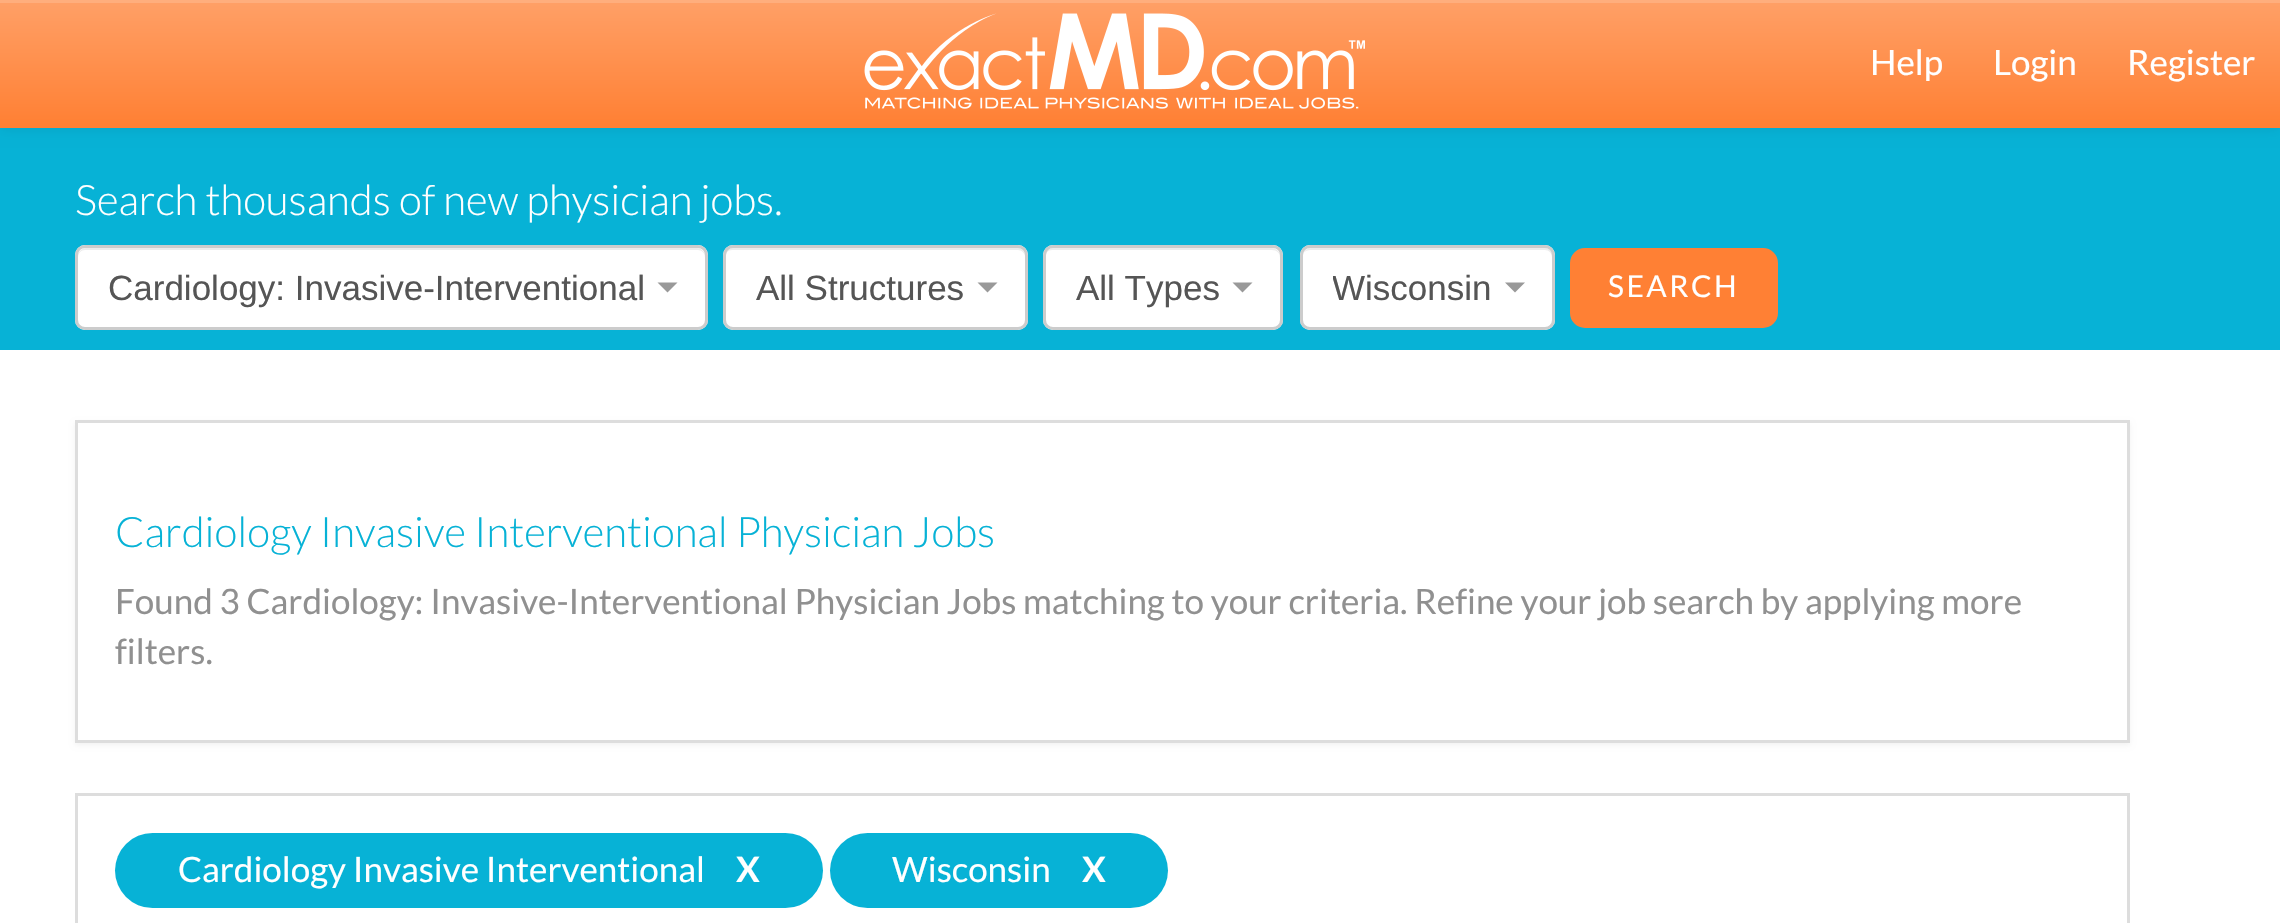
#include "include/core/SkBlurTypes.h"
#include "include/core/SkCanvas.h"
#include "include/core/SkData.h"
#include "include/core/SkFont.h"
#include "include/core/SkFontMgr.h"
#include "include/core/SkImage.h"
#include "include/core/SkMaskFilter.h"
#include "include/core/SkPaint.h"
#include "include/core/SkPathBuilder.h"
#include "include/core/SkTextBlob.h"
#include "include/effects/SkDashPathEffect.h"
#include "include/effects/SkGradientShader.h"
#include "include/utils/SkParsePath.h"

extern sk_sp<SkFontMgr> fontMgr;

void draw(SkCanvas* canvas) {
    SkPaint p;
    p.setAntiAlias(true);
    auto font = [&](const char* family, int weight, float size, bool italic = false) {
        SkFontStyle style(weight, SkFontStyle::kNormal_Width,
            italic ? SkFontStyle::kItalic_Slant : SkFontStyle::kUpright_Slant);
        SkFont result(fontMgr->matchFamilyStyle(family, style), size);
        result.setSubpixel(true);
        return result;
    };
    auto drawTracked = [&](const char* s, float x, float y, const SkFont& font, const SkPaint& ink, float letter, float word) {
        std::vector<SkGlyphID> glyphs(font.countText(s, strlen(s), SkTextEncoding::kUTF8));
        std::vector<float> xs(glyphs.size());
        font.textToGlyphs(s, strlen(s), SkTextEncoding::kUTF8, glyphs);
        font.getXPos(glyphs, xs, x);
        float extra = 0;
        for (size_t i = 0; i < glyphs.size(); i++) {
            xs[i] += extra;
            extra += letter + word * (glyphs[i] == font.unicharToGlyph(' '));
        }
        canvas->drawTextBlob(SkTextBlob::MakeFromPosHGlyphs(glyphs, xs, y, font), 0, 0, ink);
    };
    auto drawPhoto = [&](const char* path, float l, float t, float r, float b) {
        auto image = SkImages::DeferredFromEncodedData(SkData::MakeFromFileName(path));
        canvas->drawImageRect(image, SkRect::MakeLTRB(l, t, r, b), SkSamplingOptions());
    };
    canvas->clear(0xFFFFFFFF);
    p.setColor(0xFF07B2D6);
    canvas->drawRect(SkRect::MakeLTRB(0, 128, 2280, 350), p);
    p.setColor(0x12000000);
    p.setMaskFilter(SkMaskFilter::MakeBlur(kNormal_SkBlurStyle, 6));
    canvas->drawRect(SkRect::MakeLTRB(0, 3, 2280, 130), p);
    p.setMaskFilter(nullptr);
    {
        const SkColor colors[] = {0xFFFFA067, 0xFFFF8034};
        const float stops[] = {0, 1};
        const SkPoint ends[] = {{1140, 0}, {1140, 125}};
        p.setShader(SkGradientShader::MakeLinear(ends, colors, stops, 2, SkTileMode::kClamp));
        p.setAlpha(255);
    }
    canvas->drawRect(SkRect::MakeLTRB(0, 3, 2280, 125), p);
    p.setShader(nullptr);
    p.setColor(0xFFFFAE7D);
    canvas->drawRect(SkRect::MakeLTRB(0, 0, 2280, 3), p);
    p.setColor(0xFFFF8034);
    canvas->drawRect(SkRect::MakeLTRB(0, 125, 2280, 128), p);
    drawPhoto("media/1.png", 864, 13, 1365, 109);
    auto font1 = font("Lato", 400, 35);
    p.setColor(0xFFFFFFFF);
    {
        const struct { const char* s; float x, y; } items[] = {
            {"Help", 1870, 75},
            {"Login", 1993, 75},
            {"Register", 2127, 75},
        };
        for (auto [s, x, y] : items) {
            canvas->drawString(s, x, y, font1, p);
        }
    }
    auto font2 = font("Lato", 300, 42);
    canvas->drawString("Search thousands of new physician jobs.", 75, 215, font2, p);
    canvas->drawRoundRect(SkRect::MakeLTRB(75, 245, 708, 330), 10, 10, p);
    p.setColor(0xFFECECEC);
    canvas->drawPath(SkPathBuilder().moveTo(85, 250).lineTo(698, 250).cubicTo(702, 250, 705, 253, 705, 258).lineTo(705, 256).cubicTo(705, 252, 701, 248, 697, 248).lineTo(86, 248).cubicTo(82, 248, 78, 252, 78, 256).lineTo(78, 258).cubicTo(78, 253, 81, 250, 85, 250).close().detach(), p);
    p.setStyle(SkPaint::kStroke_Style);
    p.setStrokeWidth(3);
    p.setColor(0xFFCCCCCC);
    canvas->drawRoundRect(SkRect::MakeLTRB(76.5f, 246.5f, 706.5f, 328.5f), 8.5f, 8.5f, p);
    auto font3 = font("Liberation Sans", 400, 35);
    p.setStyle(SkPaint::kFill_Style);
    p.setColor(0xFF555555);
    canvas->drawString("Cardiology: Invasive-Interventional", 108, 300, font3, p);
    p.setColor(0xFF999999);
    canvas->drawPath(SkPathBuilder().moveTo(657.5f, 282.5f).lineTo(677.5f, 282.5f).lineTo(667.5f, 292.5f).close().detach(), p);
    p.setColor(0xFFFFFFFF);
    canvas->drawRoundRect(SkRect::MakeLTRB(723, 245, 1028, 330), 10, 10, p);
    p.setColor(0xFFECECEC);
    canvas->drawPath(SkPathBuilder().moveTo(732, 250).lineTo(1018, 250).cubicTo(1022, 250, 1025, 253, 1025, 258).cubicTo(1025, 254, 1024, 249, 1019, 248).lineTo(733, 248).cubicTo(727, 248, 725, 253, 725, 258).cubicTo(725, 253, 728, 250, 732, 250).close().detach(), p);
    p.setStyle(SkPaint::kStroke_Style);
    p.setColor(0xFFCCCCCC);
    canvas->drawRoundRect(SkRect::MakeLTRB(724.5f, 246.5f, 1026.5f, 328.5f), 8.5f, 8.5f, p);
    p.setStyle(SkPaint::kFill_Style);
    p.setColor(0xFF555555);
    canvas->drawString("All Structures", 756, 300, font3, p);
    p.setColor(0xFF999999);
    canvas->drawPath(SkPathBuilder().moveTo(977.5f, 282.5f).lineTo(997.5f, 282.5f).lineTo(987.5f, 292.5f).close().detach(), p);
    p.setColor(0xFFFFFFFF);
    canvas->drawRoundRect(SkRect::MakeLTRB(1043, 245, 1283, 330), 10, 10, p);
    p.setColor(0xFFECECEC);
    canvas->drawPath(SkPathBuilder().moveTo(1052, 250).lineTo(1272, 250).cubicTo(1277, 250, 1280, 253, 1280, 258).lineTo(1280, 256).cubicTo(1280, 252, 1276, 248, 1272, 248).lineTo(1053, 248).cubicTo(1049, 248, 1045, 252, 1045, 256).lineTo(1045, 258).cubicTo(1045, 253, 1048, 250, 1052, 250).close().detach(), p);
    p.setStyle(SkPaint::kStroke_Style);
    p.setColor(0xFFCCCCCC);
    canvas->drawRoundRect(SkRect::MakeLTRB(1044.5f, 246.5f, 1281.5f, 328.5f), 8.5f, 8.5f, p);
    p.setStyle(SkPaint::kFill_Style);
    p.setColor(0xFF555555);
    canvas->drawString("All Types", 1076, 300, font3, p);
    p.setColor(0xFF999999);
    canvas->drawPath(SkPathBuilder().moveTo(1232.5f, 282.5f).lineTo(1252.5f, 282.5f).lineTo(1242.5f, 292.5f).close().detach(), p);
    p.setColor(0xFFFFFFFF);
    canvas->drawRoundRect(SkRect::MakeLTRB(1300, 245, 1555, 330), 10, 10, p);
    p.setColor(0xFFECECEC);
    canvas->drawPath(SkPathBuilder().moveTo(1310, 250).lineTo(1545, 250).cubicTo(1549, 250, 1552, 253, 1552, 258).lineTo(1552, 324).cubicTo(1553, 323, 1553, 322, 1553, 320).lineTo(1553, 256).cubicTo(1553, 252, 1549, 248, 1545, 248).lineTo(1311, 248).cubicTo(1308, 248, 1305, 250, 1303, 253).cubicTo(1305, 251, 1308, 250, 1310, 250).close().detach(), p);
    p.setStyle(SkPaint::kStroke_Style);
    p.setColor(0xFFCCCCCC);
    canvas->drawRoundRect(SkRect::MakeLTRB(1301.5f, 246.5f, 1553.5f, 328.5f), 8.5f, 8.5f, p);
    canvas->save();
    canvas->clipRect(SkRect::MakeLTRB(1333, 263, 1493, 313));
    p.setStyle(SkPaint::kFill_Style);
    p.setColor(0xFF555555);
    canvas->drawString("Wisconsin", 1332, 300, font3, p);
    canvas->restore();
    p.setColor(0xFF999999);
    canvas->drawPath(SkPathBuilder().moveTo(1505, 282.5f).lineTo(1525, 282.5f).lineTo(1515, 292.5f).close().detach(), p);
    p.setColor(0xFFFF8034);
    canvas->drawRoundRect(SkRect::MakeLTRB(1574, 252, 1774, 324), 11, 11, p);
    p.setStyle(SkPaint::kStroke_Style);
    p.setStrokeWidth(8);
    canvas->drawRoundRect(SkRect::MakeLTRB(1574, 252, 1774, 324), 11, 11, p);
    auto font4 = font("Lato", 400, 30);
    p.setStyle(SkPaint::kFill_Style);
    p.setColor(0xFFFFFFFF);
    drawTracked("SEARCH", 1608, 297, font4, p, 2.5f, 0);
    p.setColor(0x0D000000);
    p.setMaskFilter(SkMaskFilter::MakeBlur(kNormal_SkBlurStyle, 2.5f));
    canvas->drawRect(SkRect::MakeLTRB(75, 423, 2130, 745), p);
    p.setMaskFilter(nullptr);
    p.setColor(0xFFFFFFFF);
    canvas->drawRect(SkRect::MakeLTRB(76.5f, 421.5f, 2128.5f, 741.5f), p);
    p.setStyle(SkPaint::kStroke_Style);
    p.setStrokeWidth(3);
    p.setColor(0xFFDDDDDD);
    canvas->drawRect(SkRect::MakeLTRB(76.5f, 421.5f, 2128.5f, 741.5f), p);
    p.setStyle(SkPaint::kFill_Style);
    p.setColor(0xFF07B2D6);
    canvas->drawString("Cardiology Invasive Interventional Physician Jobs", 115, 547, font2, p);
    p.setColor(0xFF909090);
    canvas->drawString("Found 3 Cardiology: Invasive-Interventional Physician Jobs matching to your criteria. Refine your job search by applying more", 115, 614, font1, p);
    canvas->drawString("filters.", 115, 664, font1, p);
    p.setStyle(SkPaint::kStroke_Style);
    p.setColor(0xFFDDDDDD);
    canvas->drawRect(SkRect::MakeLTRB(76.5f, 794.5f, 2128.5f, 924.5f), p);
    p.setStyle(SkPaint::kFill_Style);
    p.setColor(0xFF07B2D6);
    canvas->drawRoundRect(SkRect::MakeLTRB(115, 833, 823, 908), 37.5f, 37.5f, p);
    p.setColor(0xFFFFFFFF);
    canvas->drawString("Cardiology Invasive Interventional", 178, 882, font1, p);
    auto font5 = font("Lato", 700, 35);
    canvas->drawString("X", 736, 882, font5, p);
    p.setColor(0xFF07B2D6);
    canvas->drawRoundRect(SkRect::MakeLTRB(830, 833, 1168, 908), 37.5f, 37.5f, p);
    p.setColor(0xFFFFFFFF);
    canvas->drawString("Wisconsin", 892, 882, font1, p);
    canvas->drawString("X", 1082, 882, font5, p);
}
